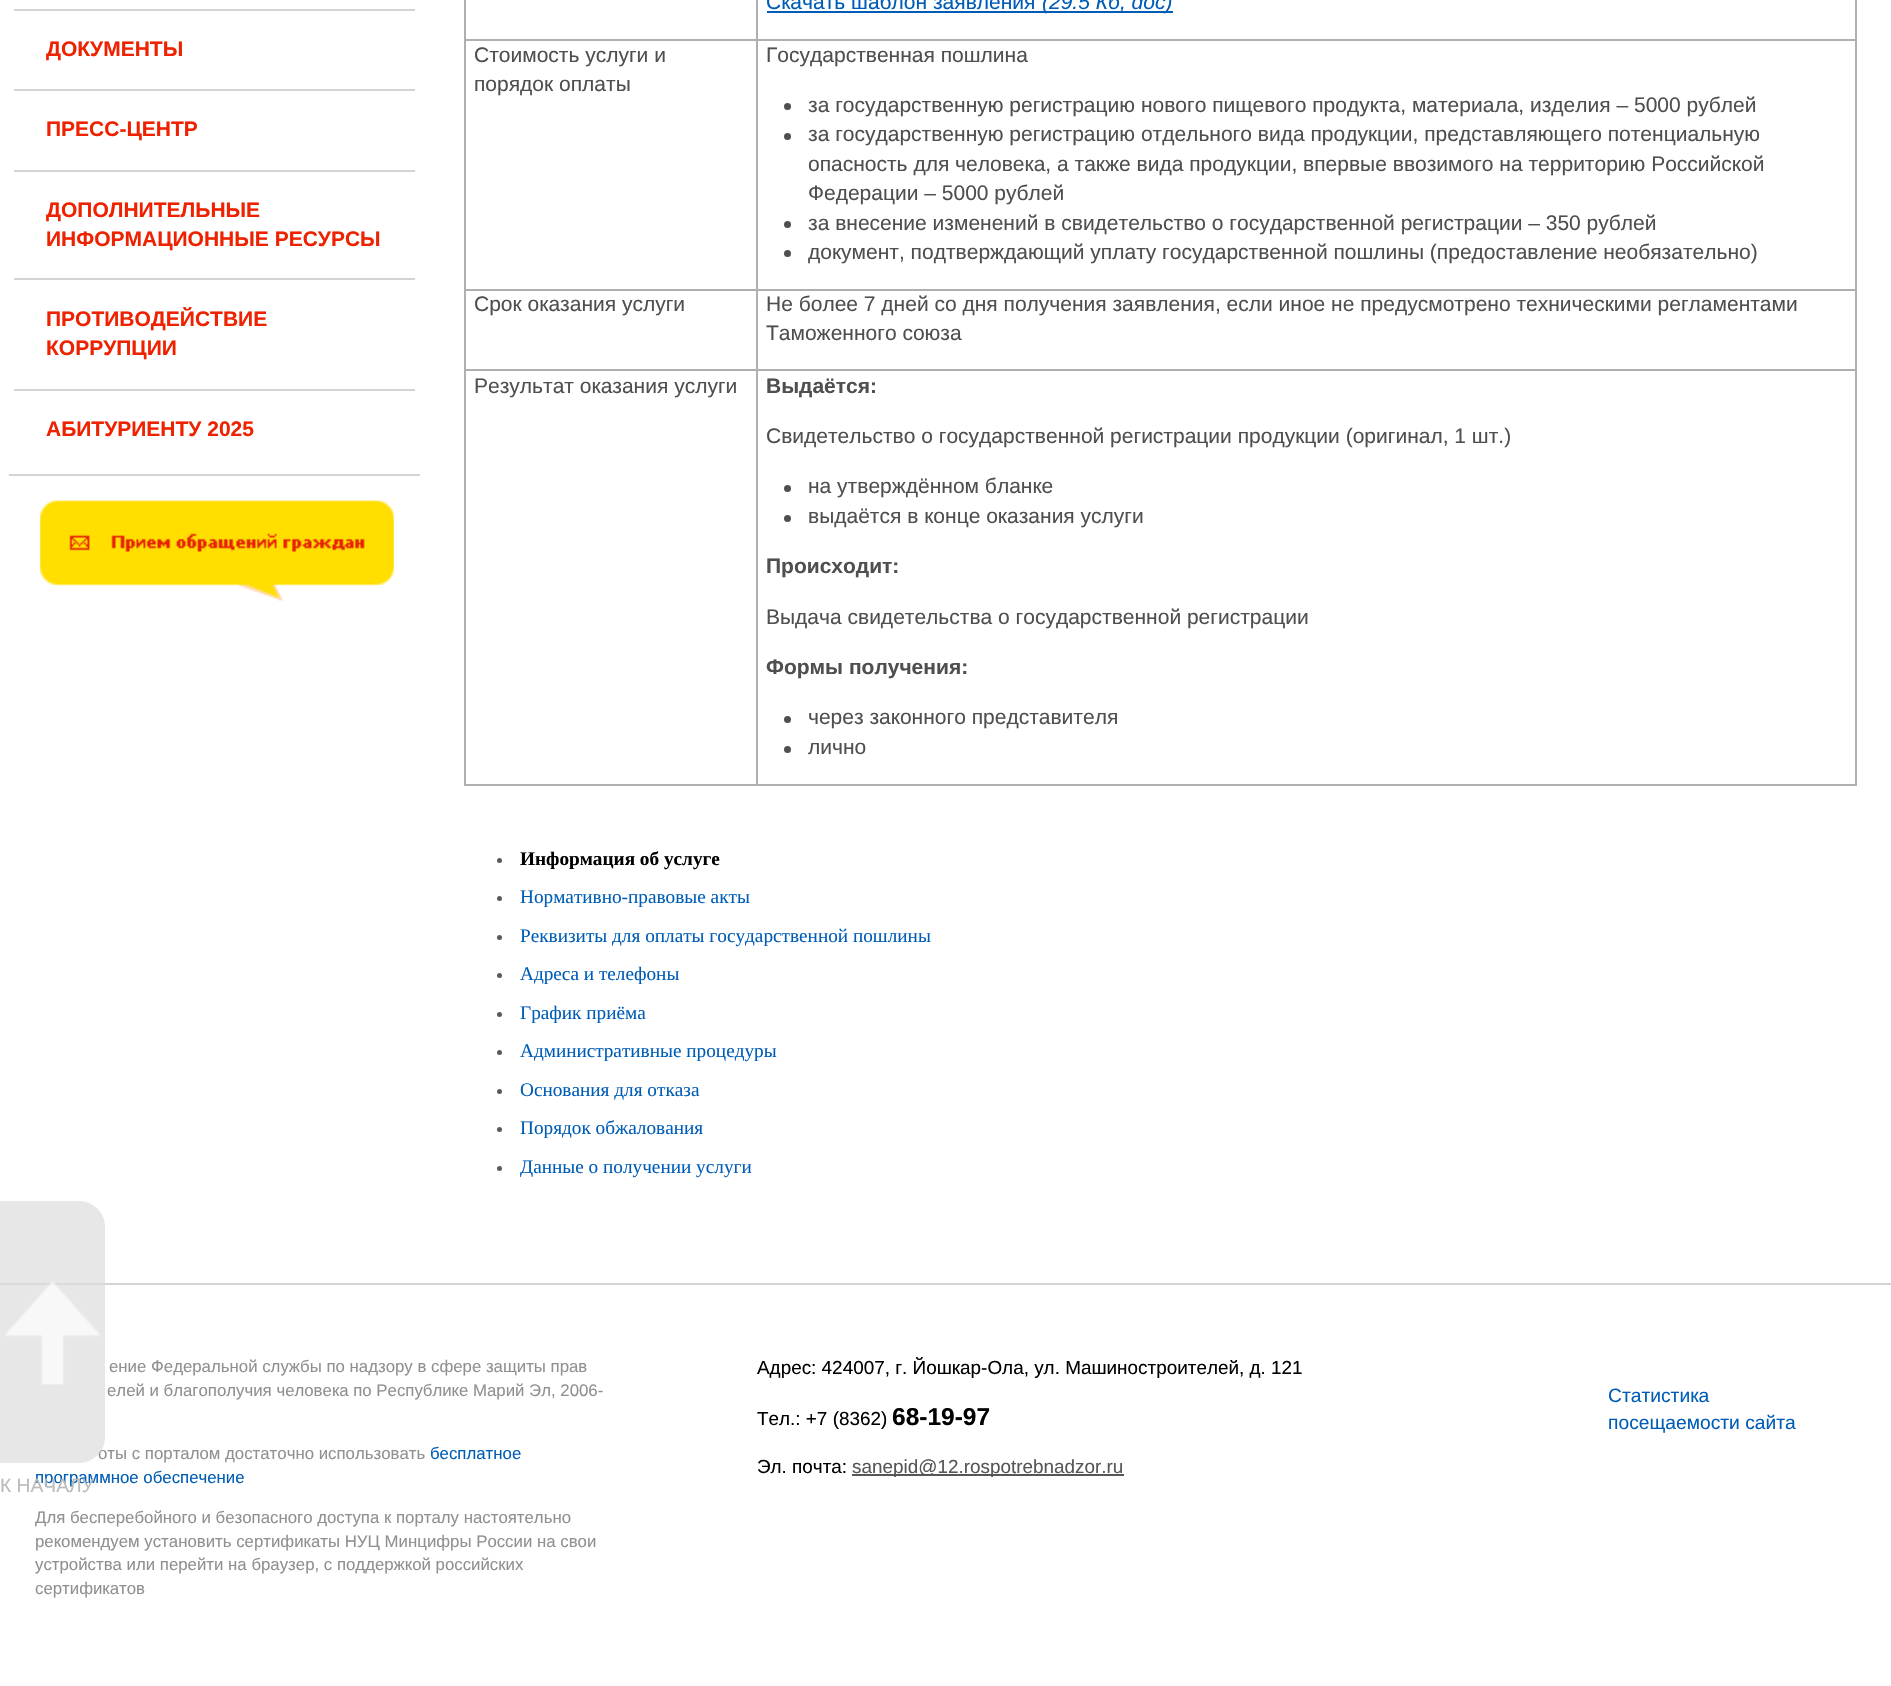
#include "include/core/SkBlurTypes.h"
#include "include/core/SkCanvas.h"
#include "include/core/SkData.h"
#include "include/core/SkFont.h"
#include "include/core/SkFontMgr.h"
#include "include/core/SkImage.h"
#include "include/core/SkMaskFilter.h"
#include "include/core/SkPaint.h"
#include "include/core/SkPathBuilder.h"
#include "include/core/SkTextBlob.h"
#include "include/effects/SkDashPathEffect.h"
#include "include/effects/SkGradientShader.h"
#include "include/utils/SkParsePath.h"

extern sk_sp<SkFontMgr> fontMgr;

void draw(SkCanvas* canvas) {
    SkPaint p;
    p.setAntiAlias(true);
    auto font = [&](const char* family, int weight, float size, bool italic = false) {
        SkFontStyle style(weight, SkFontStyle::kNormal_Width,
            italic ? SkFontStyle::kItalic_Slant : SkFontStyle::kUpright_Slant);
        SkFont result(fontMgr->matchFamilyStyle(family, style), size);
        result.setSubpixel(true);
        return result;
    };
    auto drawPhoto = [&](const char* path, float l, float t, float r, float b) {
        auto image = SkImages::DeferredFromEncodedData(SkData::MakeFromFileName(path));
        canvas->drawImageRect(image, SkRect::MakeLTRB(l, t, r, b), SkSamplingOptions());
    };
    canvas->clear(0xFFFFFFFF);
    p.setColor(0xFFD4D4D4);
    canvas->drawRect(SkRect::MakeLTRB(14, 9, 415, 11), p);
    auto font1 = font("Liberation Sans", 700, 21);
    p.setColor(0xFFEE2200);
    canvas->drawString("ДОКУМЕНТЫ", 46, 56, font1, p);
    p.setColor(0xFFD4D4D4);
    canvas->drawRect(SkRect::MakeLTRB(14, 89, 415, 91), p);
    p.setColor(0xFFEE2200);
    canvas->drawString("ПРЕСС-ЦЕНТР", 46, 136, font1, p);
    p.setColor(0xFFD4D4D4);
    canvas->drawRect(SkRect::MakeLTRB(14, 170, 415, 172), p);
    p.setColor(0xFFEE2200);
    canvas->drawString("ДОПОЛНИТЕЛЬНЫЕ", 46, 217, font1, p);
    canvas->drawString("ИНФОРМАЦИОННЫЕ РЕСУРСЫ", 46, 246, font1, p);
    p.setColor(0xFFD4D4D4);
    canvas->drawRect(SkRect::MakeLTRB(14, 278, 415, 280), p);
    p.setColor(0xFFEE2200);
    canvas->drawString("ПРОТИВОДЕЙСТВИЕ", 46, 326, font1, p);
    canvas->drawString("КОРРУПЦИИ", 46, 355, font1, p);
    p.setColor(0xFFD4D4D4);
    canvas->drawRect(SkRect::MakeLTRB(14, 389, 415, 391), p);
    p.setColor(0xFFEE2200);
    canvas->drawString("АБИТУРИЕНТУ 2025", 46, 436, font1, p);
    p.setColor(0xFFD4D4D4);
    canvas->drawRect(SkRect::MakeLTRB(9, 474, 420, 476), p);
    drawPhoto("media/1.png", 40, 500, 394, 601);
    {
        const struct { float l, t, r, b; SkColor color; } items[] = {
            {1855, 0, 1857, 786, 0xFFAFAFAF},
            {464, 784, 1857, 786, 0xFFAFAFAF},
            {464, 0, 466, 786, 0xFFAFAFAF},
            {756, 39, 1857, 41, 0xFFAFAFAF},
            {756, 289, 1857, 291, 0xFFAFAFAF},
            {756, 369, 1857, 371, 0xFFAFAFAF},
            {756, 369, 758, 786, 0xFFAFAFAF},
            {464, 369, 758, 371, 0xFFAFAFAF},
            {756, 289, 758, 371, 0xFFAFAFAF},
            {464, 289, 758, 291, 0xFFAFAFAF},
            {756, 39, 758, 291, 0xFFAFAFAF},
            {464, 39, 758, 41, 0xFFAFAFAF},
            {756, 0, 758, 40, 0xFFAFAFAF},
        };
        for (auto [l, t, r, b, color] : items) {
            p.setColor(color);
            canvas->drawRect(SkRect::MakeLTRB(l, t, r, b), p);
        }
    }
    auto font2 = font("Liberation Sans", 400, 21);
    p.setColor(0xFF005DB7);
    canvas->drawString("Скачать шаблон заявления", 766, 9, font2, p);
    canvas->drawRect(SkRect::MakeLTRB(767, 11, 1173, 13), p);
    auto font3 = font("Liberation Sans", 400, 21, true);
    canvas->drawString("(29.5 Кб, doc)", 1042, 9, font3, p);
    p.setColor(0xFF4F4F4F);
    {
        const struct { const char* s; float x, y; } items[] = {
            {"Стоимость услуги и", 474, 62},
            {"порядок оплаты", 474, 91},
            {"Государственная пошлина", 766, 62},
        };
        for (auto [s, x, y] : items) {
            canvas->drawString(s, x, y, font2, p);
        }
    }
    canvas->drawCircle(787.5f, 106.5f, 3.5f, p);
    canvas->drawString("за государственную регистрацию нового пищевого продукта, материала, изделия – 5000 рублей", 808, 112, font2, p);
    canvas->drawCircle(787.5f, 136.5f, 3.5f, p);
    {
        const struct { const char* s; float x, y; } items[] = {
            {"за государственную регистрацию отдельного вида продукции, представляющего потенциальную", 808, 141},
            {"опасность для человека, а также вида продукции, впервые ввозимого на территорию Российской", 808, 171},
            {"Федерации – 5000 рублей", 808, 200},
        };
        for (auto [s, x, y] : items) {
            canvas->drawString(s, x, y, font2, p);
        }
    }
    canvas->drawCircle(787.5f, 224.5f, 3.5f, p);
    canvas->drawString("за внесение изменений в свидетельство о государственной регистрации – 350 рублей", 808, 230, font2, p);
    canvas->drawCircle(787.5f, 253.5f, 3.5f, p);
    {
        const struct { const char* s; float x, y; } items[] = {
            {"документ, подтверждающий уплату государственной пошлины (предоставление необязательно)", 808, 259},
            {"Срок оказания услуги", 474, 311},
            {"Не более 7 дней со дня получения заявления, если иное не предусмотрено техническими регламентами", 766, 311},
            {"Таможенного союза", 766, 340},
            {"Результат оказания услуги", 474, 393},
        };
        for (auto [s, x, y] : items) {
            canvas->drawString(s, x, y, font2, p);
        }
    }
    canvas->drawString("Выдаётся:", 766, 393, font1, p);
    canvas->drawString("Свидетельство о государственной регистрации продукции (оригинал, 1 шт.)", 766, 443, font2, p);
    canvas->drawCircle(787.5f, 488.5f, 3.5f, p);
    canvas->drawString("на утверждённом бланке", 808, 493, font2, p);
    canvas->drawCircle(787.5f, 518.5f, 3.5f, p);
    canvas->drawString("выдаётся в конце оказания услуги", 808, 523, font2, p);
    canvas->drawString("Происходит:", 766, 573, font1, p);
    canvas->drawString("Выдача свидетельства о государственной регистрации", 766, 624, font2, p);
    canvas->drawString("Формы получения:", 766, 674, font1, p);
    canvas->drawCircle(787.5f, 719.5f, 3.5f, p);
    canvas->drawString("через законного представителя", 808, 724, font2, p);
    canvas->drawCircle(787.5f, 749.5f, 3.5f, p);
    canvas->drawString("лично", 808, 754, font2, p);
    p.setColor(0xFF5A5A5A);
    canvas->drawCircle(499.5f, 860.5f, 2.5f, p);
    auto font4 = font("Liberation Serif", 700, 19.25f);
    p.setColor(0xFF000000);
    canvas->drawString("Информация об услуге", 520, 865, font4, p);
    p.setColor(0xFF5A5A5A);
    canvas->drawCircle(499.5f, 898.5f, 2.5f, p);
    auto font5 = font("Liberation Serif", 400, 19.25f);
    p.setColor(0xFF005DB7);
    canvas->drawString("Нормативно-правовые акты", 520, 903, font5, p);
    p.setColor(0xFF5A5A5A);
    canvas->drawCircle(499.5f, 937.5f, 2.5f, p);
    p.setColor(0xFF005DB7);
    canvas->drawString("Реквизиты для оплаты государственной пошлины", 520, 942, font5, p);
    p.setColor(0xFF5A5A5A);
    canvas->drawCircle(499.5f, 975.5f, 2.5f, p);
    p.setColor(0xFF005DB7);
    canvas->drawString("Адреса и телефоны", 520, 980, font5, p);
    p.setColor(0xFF5A5A5A);
    canvas->drawCircle(499.5f, 1014.5f, 2.5f, p);
    p.setColor(0xFF005DB7);
    canvas->drawString("График приёма", 520, 1019, font5, p);
    p.setColor(0xFF5A5A5A);
    canvas->drawCircle(499.5f, 1052.5f, 2.5f, p);
    p.setColor(0xFF005DB7);
    canvas->drawString("Административные процедуры", 520, 1057, font5, p);
    p.setColor(0xFF5A5A5A);
    canvas->drawCircle(499.5f, 1091.5f, 2.5f, p);
    p.setColor(0xFF005DB7);
    canvas->drawString("Основания для отказа", 520, 1096, font5, p);
    p.setColor(0xFF5A5A5A);
    canvas->drawCircle(499.5f, 1129.5f, 2.5f, p);
    p.setColor(0xFF005DB7);
    canvas->drawString("Порядок обжалования", 520, 1134, font5, p);
    p.setColor(0xFF5A5A5A);
    canvas->drawCircle(499.5f, 1168.5f, 2.5f, p);
    p.setColor(0xFF005DB7);
    canvas->drawString("Данные о получении услуги", 520, 1173, font5, p);
    p.setColor(0xFFD4D4D4);
    canvas->drawRect(SkRect::MakeLTRB(0, 1283, 1891, 1285), p);
    auto font6 = font("Liberation Sans", 400, 16.8f);
    p.setColor(0xFF909090);
    {
        const struct { const char* s; float x, y; } items[] = {
            {"ение Федеральной службы по надзору в сфере защиты прав", 109, 1372},
            {"елей и благополучия человека по Республике Марий Эл, 2006-", 107, 1396},
            {"оты с порталом достаточно использовать", 98, 1459},
        };
        for (auto [s, x, y] : items) {
            canvas->drawString(s, x, y, font6, p);
        }
    }
    p.setColor(0xFF005DB7);
    canvas->drawString("бесплатное", 430, 1459, font6, p);
    canvas->drawString("программное обеспечение", 35, 1483, font6, p);
    p.setColor(0xB3DDDDDD);
    canvas->drawPath(SkPathBuilder().moveTo(0, 1201).lineTo(79, 1201).cubicTo(93.5f, 1201, 105, 1212.5f, 105, 1227).lineTo(105, 1437).cubicTo(105, 1451.5f, 93.5f, 1463, 79, 1463).lineTo(0, 1463).close().detach(), p);
    drawPhoto("media/2.png", 5, 1281, 100, 1385);
    auto font7 = font("Liberation Sans", 400, 19.25f);
    p.setColor(0xFFBBBBBB);
    canvas->drawString("К НАЧАЛУ", 0, 1492, font7, p);
    p.setColor(0xFF909090);
    {
        const struct { const char* s; float x, y; } items[] = {
            {"Для бесперебойного и безопасного доступа к порталу настоятельно", 35, 1523},
            {"рекомендуем установить сертификаты НУЦ Минцифры России на свои", 35, 1547},
            {"устройства или перейти на браузер, с поддержкой российских", 35, 1570},
            {"сертификатов", 35, 1594},
        };
        for (auto [s, x, y] : items) {
            canvas->drawString(s, x, y, font6, p);
        }
    }
    auto font8 = font("Liberation Sans", 400, 18.9f);
    p.setColor(0xFF000000);
    canvas->drawString("Адрес: 424007, г. Йошкар-Ола, ул. Машиностроителей, д. 121", 757, 1374, font8, p);
    canvas->drawString("Тел.: +7 (8362)", 757, 1425, font8, p);
    auto font9 = font("Liberation Sans", 700, 24.5f);
    canvas->drawString("68-19-97", 892, 1425, font9, p);
    canvas->drawString("Эл. почта:", 757, 1473, font8, p);
    p.setColor(0xFF565656);
    canvas->drawRect(SkRect::MakeLTRB(852, 1474, 1124, 1476), p);
    canvas->drawString("sanepid@12.rospotrebnadzor.ru", 852, 1473, font8, p);
    p.setColor(0xFF005DB7);
    canvas->drawString("Статистика", 1608, 1402, font7, p);
    canvas->drawString("посещаемости сайта", 1608, 1429, font7, p);
}
